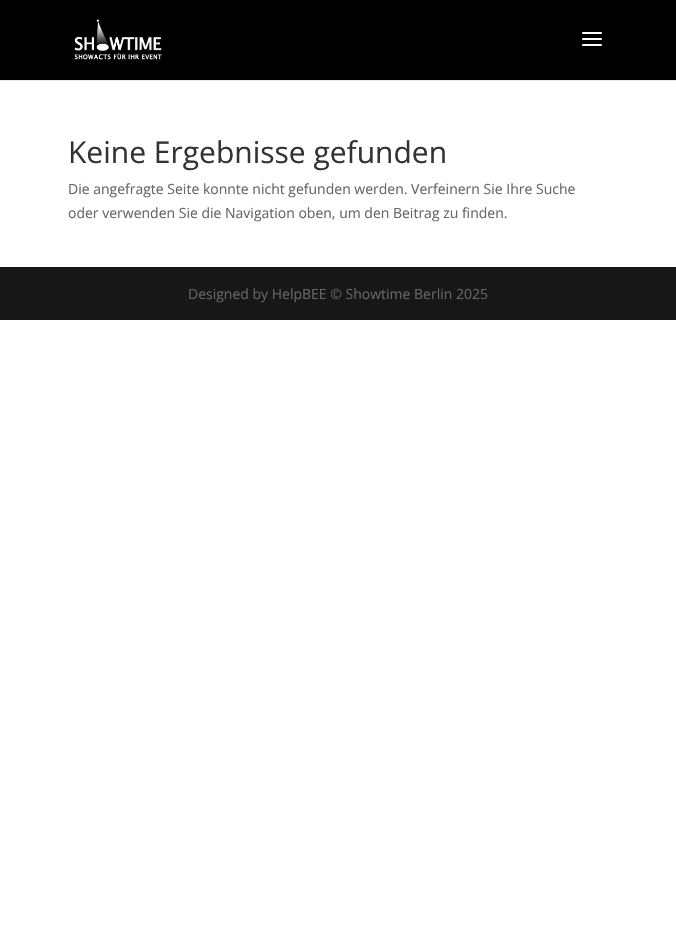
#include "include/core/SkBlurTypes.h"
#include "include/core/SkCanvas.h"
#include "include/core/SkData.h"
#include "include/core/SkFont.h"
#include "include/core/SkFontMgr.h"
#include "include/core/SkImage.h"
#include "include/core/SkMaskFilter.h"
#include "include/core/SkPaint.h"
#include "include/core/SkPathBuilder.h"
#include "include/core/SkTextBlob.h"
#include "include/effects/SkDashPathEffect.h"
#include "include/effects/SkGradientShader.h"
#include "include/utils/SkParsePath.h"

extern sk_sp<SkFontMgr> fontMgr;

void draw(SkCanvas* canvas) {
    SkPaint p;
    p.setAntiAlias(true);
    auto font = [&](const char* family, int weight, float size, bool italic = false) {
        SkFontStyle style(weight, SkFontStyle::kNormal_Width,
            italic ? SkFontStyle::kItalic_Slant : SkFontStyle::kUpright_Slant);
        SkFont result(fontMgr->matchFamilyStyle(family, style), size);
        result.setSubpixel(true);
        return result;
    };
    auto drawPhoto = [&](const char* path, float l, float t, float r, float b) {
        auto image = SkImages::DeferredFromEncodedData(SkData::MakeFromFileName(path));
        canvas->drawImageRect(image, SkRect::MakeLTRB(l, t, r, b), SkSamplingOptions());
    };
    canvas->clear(0xFFFFFFFF);
    p.setColor(0xFFE6E6E6);
    canvas->drawRect(SkRect::MakeLTRB(0, 80, 676, 81), p);
    p.setColor(0xFF000000);
    canvas->drawRect(SkRect::MakeLTRB(0, 0, 676, 80), p);
    drawPhoto("media/1.png", 74, 19, 162, 60);
    drawPhoto("media/2.png", 582, 32, 602, 46);
    auto font1 = font("Open Sans", 400, 30);
    p.setColor(0xFF333333);
    canvas->drawString("Keine Ergebnisse gefunden", 68, 163, font1, p);
    auto font2 = font("Open Sans", 400, 14);
    p.setColor(0xFF666666);
    canvas->drawString("Die angefragte Seite konnte nicht gefunden werden. Verfeinern Sie Ihre Suche", 68, 194, font2, p);
    canvas->drawString("oder verwenden Sie die Navigation oben, um den Beitrag zu finden.", 68, 218, font2, p);
    p.setColor(0xFF171717);
    canvas->drawRect(SkRect::MakeLTRB(0, 267, 676, 320), p);
    p.setColor(0xFF666666);
    canvas->drawString("Designed by HelpBEE © Showtime Berlin 2025", 188, 299, font2, p);
}
